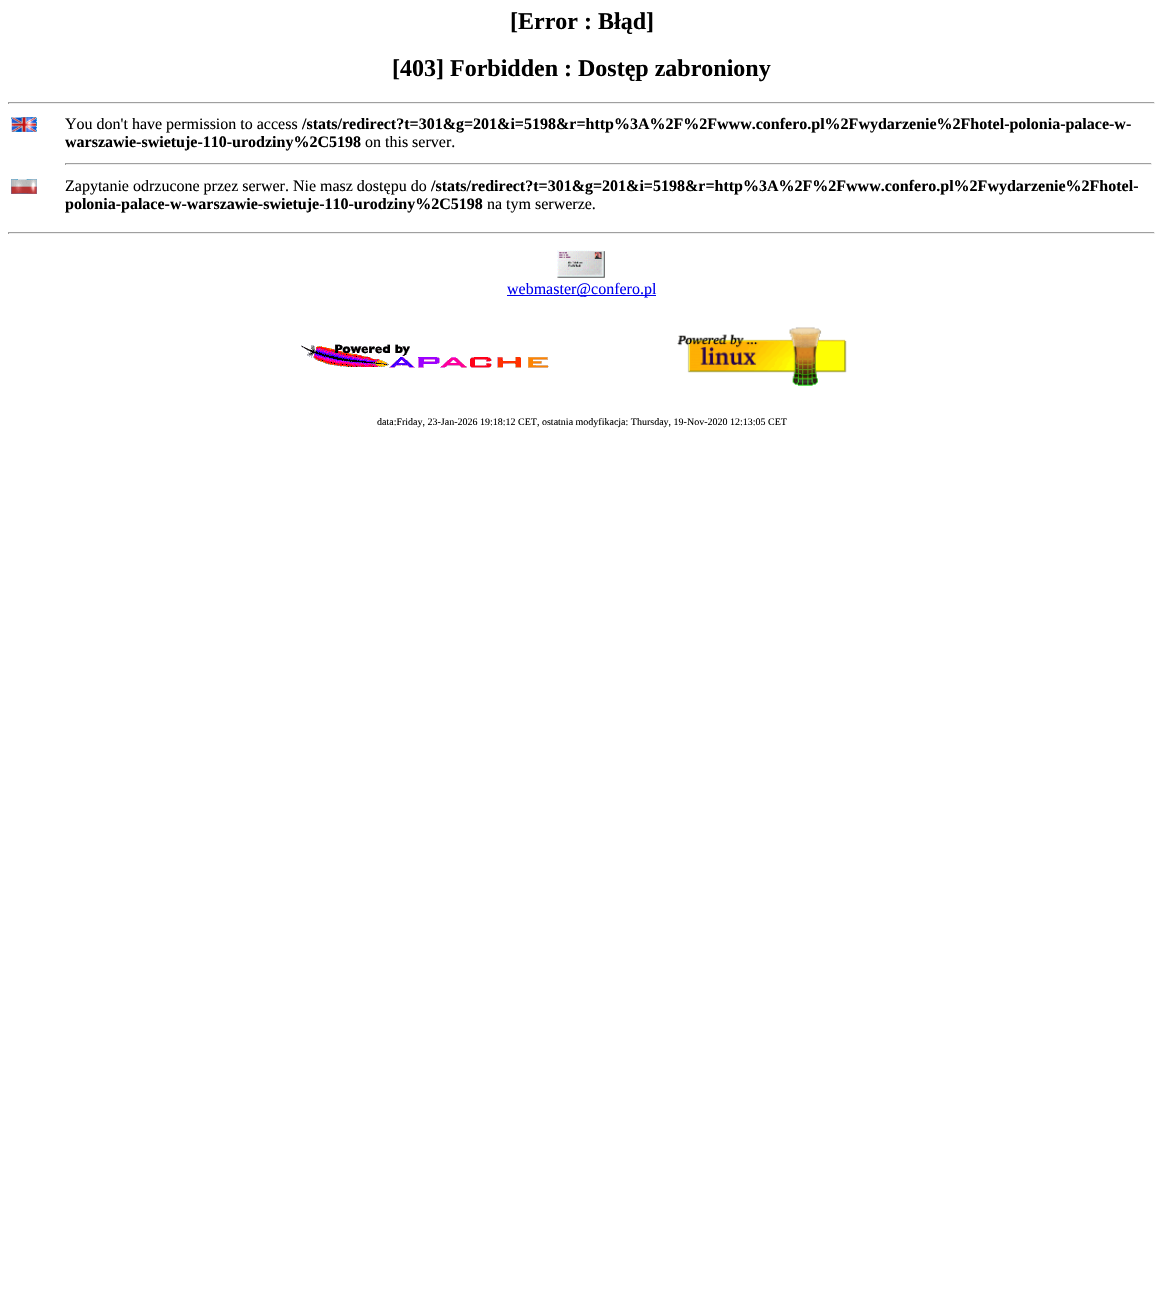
#include "include/core/SkBlurTypes.h"
#include "include/core/SkCanvas.h"
#include "include/core/SkData.h"
#include "include/core/SkFont.h"
#include "include/core/SkFontMgr.h"
#include "include/core/SkImage.h"
#include "include/core/SkMaskFilter.h"
#include "include/core/SkPaint.h"
#include "include/core/SkPathBuilder.h"
#include "include/core/SkTextBlob.h"
#include "include/effects/SkDashPathEffect.h"
#include "include/effects/SkGradientShader.h"
#include "include/utils/SkParsePath.h"

extern sk_sp<SkFontMgr> fontMgr;

void draw(SkCanvas* canvas) {
    SkPaint p;
    p.setAntiAlias(true);
    auto font = [&](const char* family, int weight, float size, bool italic = false) {
        SkFontStyle style(weight, SkFontStyle::kNormal_Width,
            italic ? SkFontStyle::kItalic_Slant : SkFontStyle::kUpright_Slant);
        SkFont result(fontMgr->matchFamilyStyle(family, style), size);
        result.setSubpixel(true);
        return result;
    };
    auto drawPhoto = [&](const char* path, float l, float t, float r, float b) {
        auto image = SkImages::DeferredFromEncodedData(SkData::MakeFromFileName(path));
        canvas->drawImageRect(image, SkRect::MakeLTRB(l, t, r, b), SkSamplingOptions());
    };
    canvas->clear(0xFFFFFFFF);
    auto font1 = font("Liberation Serif", 700, 24);
    p.setColor(0xFF000000);
    canvas->drawString("[Error : Błąd]", 510, 29, font1, p);
    canvas->drawString("[403] Forbidden : Dostęp zabroniony", 392, 76, font1, p);
    {
        const struct { float l, t, r, b; SkColor color; } items[] = {
            {8, 102, 1155, 103, 0xFF9F9F9F},
            {1154, 102, 1155, 104, 0xFFEEEEEE},
            {8, 103, 1155, 104, 0xFFEEEEEE},
            {8, 102, 9, 104, 0xFF9F9F9F},
        };
        for (auto [l, t, r, b, color] : items) {
            p.setColor(color);
            canvas->drawRect(SkRect::MakeLTRB(l, t, r, b), p);
        }
    }
    drawPhoto("media/1.png", 11, 117, 37, 132);
    auto font2 = font("Liberation Serif", 400, 16);
    p.setColor(0xFF000000);
    canvas->drawString("You don't have permission to access", 65, 129, font2, p);
    auto font3 = font("Liberation Serif", 700, 16);
    canvas->drawString("/stats/redirect?t=301&g=201&i=5198&r=http%3A%2F%2Fwww.confero.pl%2Fwydarzenie%2Fhotel-polonia-palace-w-", 302, 129, font3, p);
    canvas->drawString("warszawie-swietuje-110-urodziny%2C5198", 65, 147, font3, p);
    canvas->drawString("on this server.", 365, 147, font2, p);
    {
        const struct { float l, t, r, b; SkColor color; } items[] = {
            {65, 163, 1152, 164, 0xFF9F9F9F},
            {1151, 163, 1152, 165, 0xFFEEEEEE},
            {65, 164, 1152, 165, 0xFFEEEEEE},
            {65, 163, 66, 165, 0xFF9F9F9F},
        };
        for (auto [l, t, r, b, color] : items) {
            p.setColor(color);
            canvas->drawRect(SkRect::MakeLTRB(l, t, r, b), p);
        }
    }
    drawPhoto("media/2.png", 11, 179, 37, 194);
    p.setColor(0xFF000000);
    canvas->drawString("Zapytanie odrzucone przez serwer. Nie masz dostępu do", 65, 191, font2, p);
    canvas->drawString("/stats/redirect?t=301&g=201&i=5198&r=http%3A%2F%2Fwww.confero.pl%2Fwydarzenie%2Fhotel-", 431, 191, font3, p);
    canvas->drawString("polonia-palace-w-warszawie-swietuje-110-urodziny%2C5198", 65, 209, font3, p);
    canvas->drawString("na tym serwerze.", 487, 209, font2, p);
    {
        const struct { float l, t, r, b; SkColor color; } items[] = {
            {8, 232, 1155, 233, 0xFF9F9F9F},
            {1154, 232, 1155, 234, 0xFFEEEEEE},
            {8, 233, 1155, 234, 0xFFEEEEEE},
            {8, 232, 9, 234, 0xFF9F9F9F},
        };
        for (auto [l, t, r, b, color] : items) {
            p.setColor(color);
            canvas->drawRect(SkRect::MakeLTRB(l, t, r, b), p);
        }
    }
    drawPhoto("media/3.png", 557, 250, 605, 278);
    p.setColor(0xFF0000EE);
    canvas->drawRect(SkRect::MakeLTRB(507, 295, 656, 296), p);
    canvas->drawString("webmaster@confero.pl", 507, 294, font2, p);
    drawPhoto("media/4.png", 301, 344, 549, 368);
    drawPhoto("media/5.png", 677, 327, 847, 386);
    auto font4 = font("Liberation Serif", 400, 10);
    p.setColor(0xFF000000);
    canvas->drawString("data:Friday, 23-Jan-2026 19:18:12 CET, ostatnia modyfikacja: Thursday, 19-Nov-2020 12:13:05 CET", 377, 425, font4, p);
}
